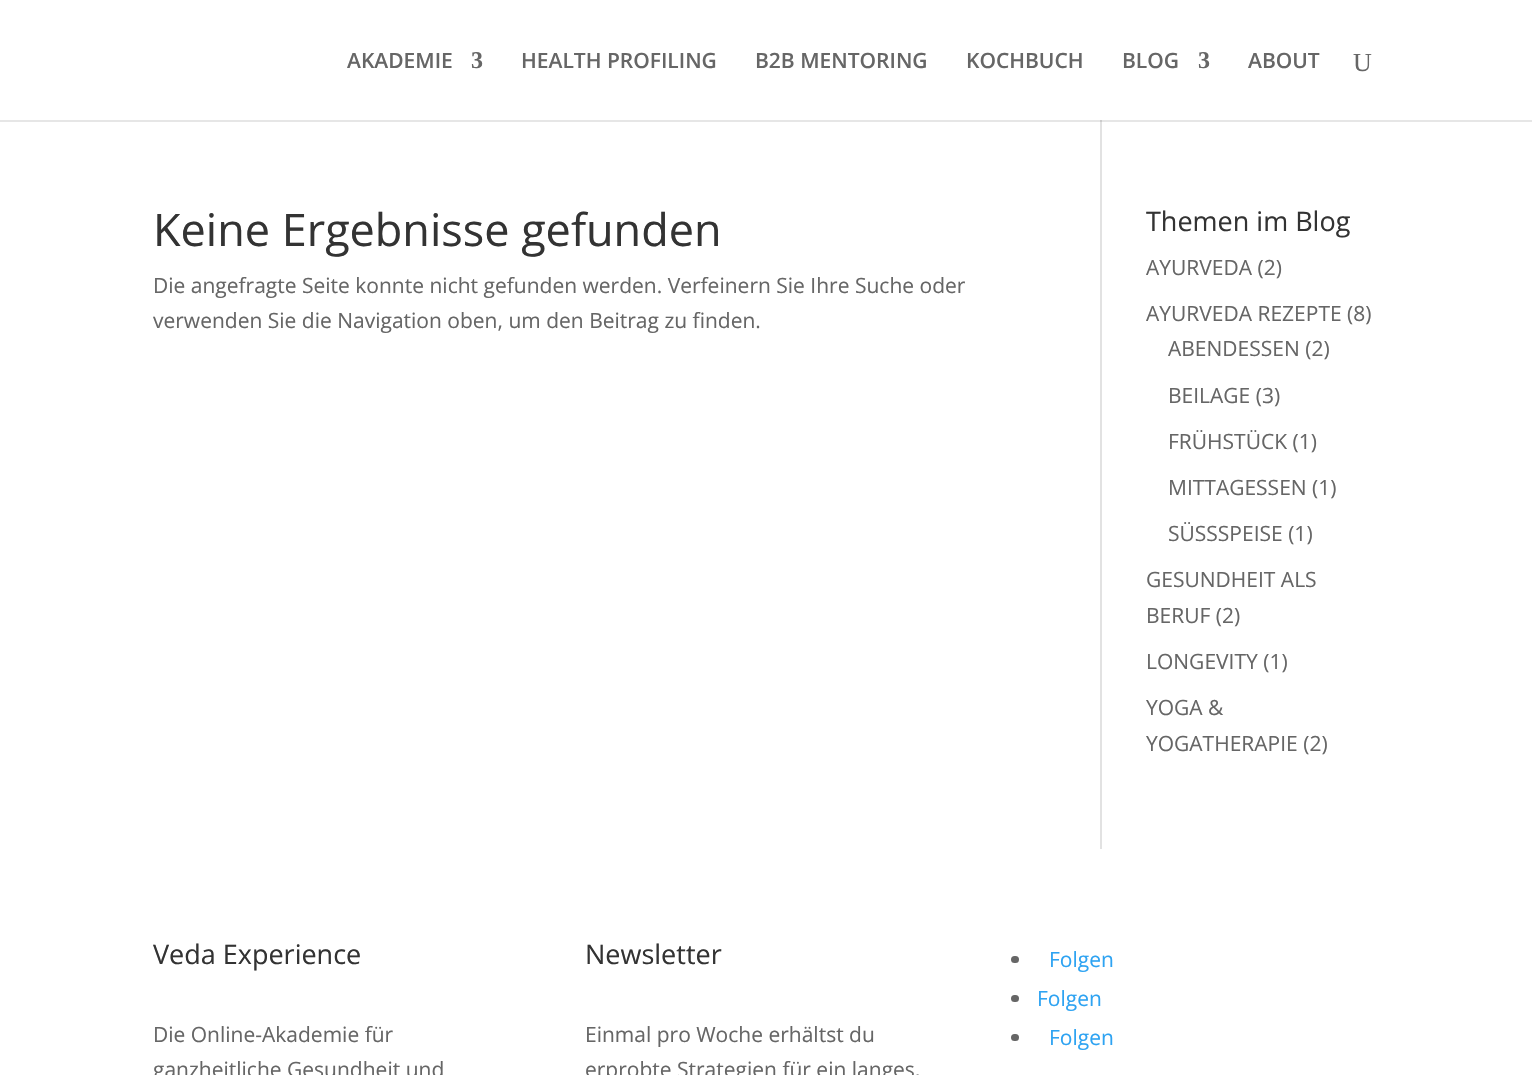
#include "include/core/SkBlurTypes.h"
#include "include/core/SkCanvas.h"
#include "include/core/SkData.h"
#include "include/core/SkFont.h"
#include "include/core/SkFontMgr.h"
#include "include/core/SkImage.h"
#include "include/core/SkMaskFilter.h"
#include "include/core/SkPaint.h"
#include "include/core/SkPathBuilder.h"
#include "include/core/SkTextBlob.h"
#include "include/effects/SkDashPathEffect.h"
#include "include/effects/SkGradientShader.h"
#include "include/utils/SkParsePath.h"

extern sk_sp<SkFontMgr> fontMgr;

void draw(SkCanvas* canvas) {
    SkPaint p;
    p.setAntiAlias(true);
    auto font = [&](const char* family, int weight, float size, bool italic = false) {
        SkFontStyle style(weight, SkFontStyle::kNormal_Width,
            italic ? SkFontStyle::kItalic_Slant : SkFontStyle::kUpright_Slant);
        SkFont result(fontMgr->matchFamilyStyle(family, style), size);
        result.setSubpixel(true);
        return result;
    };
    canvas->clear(0xFFFFFFFF);
    p.setColor(0xFFE6E6E6);
    canvas->drawRect(SkRect::MakeLTRB(0, 120, 1532, 122), p);
    auto font1 = font("Open Sans", 600, 21);
    p.setColor(0xFF666666);
    canvas->drawString("AKADEMIE", 347, 68, font1, p);
    auto font2 = font("Liberation Serif", 700, 24);
    canvas->drawString("3", 471, 68, font2, p);
    {
        const struct { const char* s; float x, y; } items[] = {
            {"HEALTH PROFILING", 521, 68},
            {"B2B MENTORING", 755, 68},
            {"KOCHBUCH", 966, 68},
            {"BLOG", 1122, 68},
        };
        for (auto [s, x, y] : items) {
            canvas->drawString(s, x, y, font1, p);
        }
    }
    canvas->drawString("3", 1198, 68, font2, p);
    canvas->drawString("ABOUT", 1248, 68, font1, p);
    auto font3 = font("Liberation Serif", 400, 26);
    canvas->drawString("U", 1353, 71, font3, p);
    p.setColor(0xFFE2E2E2);
    canvas->drawRect(SkRect::MakeLTRB(1100, 120, 1102, 849), p);
    p.setColor(0xFFCBCBCB);
    canvas->drawRect(SkRect::MakeLTRB(1100, 120, 1102, 122), p);
    auto font4 = font("Open Sans", 400, 45);
    p.setColor(0xFF333333);
    canvas->drawString("Keine Ergebnisse gefunden", 153, 246, font4, p);
    auto font5 = font("Open Sans", 400, 21);
    p.setColor(0xFF666666);
    canvas->drawString("Die angefragte Seite konnte nicht gefunden werden. Verfeinern Sie Ihre Suche oder", 153, 293, font5, p);
    canvas->drawString("verwenden Sie die Navigation oben, um den Beitrag zu finden.", 153, 328, font5, p);
    auto font6 = font("Open Sans", 400, 27);
    p.setColor(0xFF333333);
    canvas->drawString("Themen im Blog", 1146, 231, font6, p);
    p.setColor(0xFF666666);
    {
        const struct { const char* s; float x, y; } items[] = {
            {"AYURVEDA (2)", 1146, 275},
            {"AYURVEDA REZEPTE (8)", 1146, 321},
            {"ABENDESSEN (2)", 1168, 356},
            {"BEILAGE (3)", 1168, 403},
            {"FRÜHSTÜCK (1)", 1168, 449},
            {"MITTAGESSEN (1)", 1168, 495},
            {"SÜSSSPEISE (1)", 1168, 541},
            {"GESUNDHEIT ALS", 1146, 587},
            {"BERUF (2)", 1146, 623},
            {"LONGEVITY (1)", 1146, 669},
            {"YOGA &", 1146, 715},
            {"YOGATHERAPIE (2)", 1146, 751},
        };
        for (auto [s, x, y] : items) {
            canvas->drawString(s, x, y, font5, p);
        }
    }
    p.setColor(0xFF333333);
    canvas->drawString("Veda Experience", 153, 964, font6, p);
    p.setColor(0xFF666666);
    canvas->drawString("Die Online-Akademie für", 153, 1042, font5, p);
    canvas->drawString("ganzheitliche Gesundheit und", 153, 1077, font5, p);
    p.setColor(0xFF333333);
    canvas->drawString("Newsletter", 585, 964, font6, p);
    p.setColor(0xFF666666);
    canvas->drawString("Einmal pro Woche erhältst du", 585, 1042, font5, p);
    canvas->drawString("erprobte Strategien für ein langes,", 585, 1077, font5, p);
    canvas->drawRoundRect(SkRect::MakeLTRB(1011, 956, 1019, 963), 3.5f, 3.5f, p);
    p.setColor(0xFF2EA3F2);
    canvas->drawString("Folgen", 1049, 967, font5, p);
    p.setColor(0xFF666666);
    canvas->drawRoundRect(SkRect::MakeLTRB(1011, 995, 1019, 1002), 3.5f, 3.5f, p);
    p.setColor(0xFF2EA3F2);
    canvas->drawString("Folgen", 1037, 1006, font5, p);
    p.setColor(0xFF666666);
    canvas->drawRoundRect(SkRect::MakeLTRB(1011, 1034, 1019, 1041), 3.5f, 3.5f, p);
    p.setColor(0xFF2EA3F2);
    canvas->drawString("Folgen", 1049, 1045, font5, p);
}
